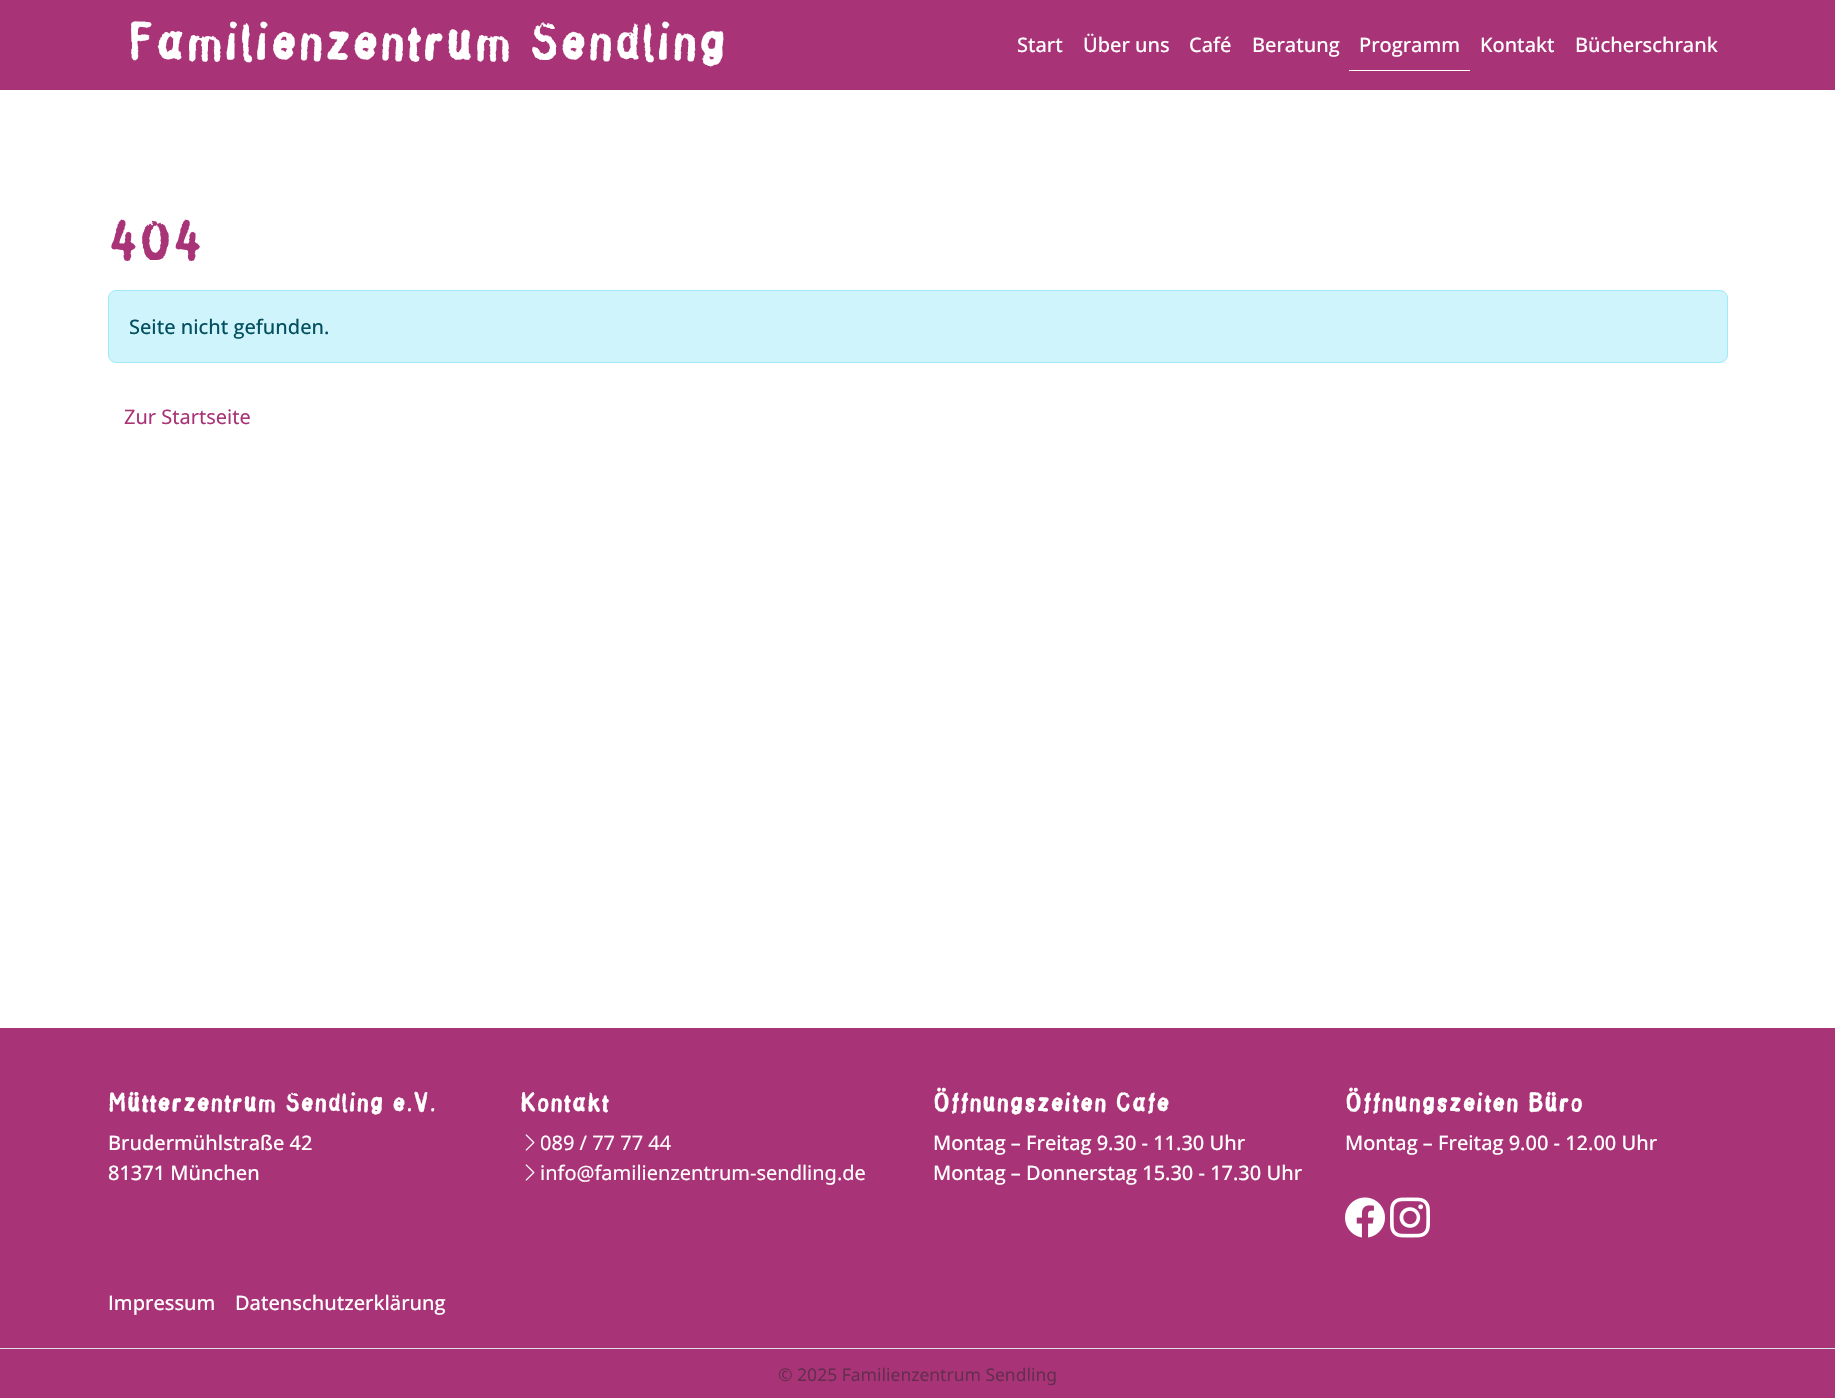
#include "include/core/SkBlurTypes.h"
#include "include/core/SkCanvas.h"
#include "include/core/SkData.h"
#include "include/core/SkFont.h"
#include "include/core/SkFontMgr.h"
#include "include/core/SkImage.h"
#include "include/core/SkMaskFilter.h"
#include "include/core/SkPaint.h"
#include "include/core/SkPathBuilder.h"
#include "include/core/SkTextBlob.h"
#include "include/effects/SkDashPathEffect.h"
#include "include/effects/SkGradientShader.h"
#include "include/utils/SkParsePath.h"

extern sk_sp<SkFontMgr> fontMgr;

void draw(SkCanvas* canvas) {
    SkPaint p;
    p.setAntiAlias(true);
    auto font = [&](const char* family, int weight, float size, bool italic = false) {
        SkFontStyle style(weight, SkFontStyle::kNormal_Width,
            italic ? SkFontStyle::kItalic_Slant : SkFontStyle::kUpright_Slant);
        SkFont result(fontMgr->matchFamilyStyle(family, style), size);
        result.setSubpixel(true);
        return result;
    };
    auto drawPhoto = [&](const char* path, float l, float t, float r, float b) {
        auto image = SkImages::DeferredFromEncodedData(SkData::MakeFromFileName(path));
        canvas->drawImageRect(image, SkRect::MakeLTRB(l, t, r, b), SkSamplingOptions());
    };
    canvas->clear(0xFFFFFFFF);
    p.setColor(0xFFA83477);
    canvas->drawRect(SkRect::MakeLTRB(0, 0, 1835, 90), p);
    auto font1 = font("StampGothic", 500, 50);
    p.setColor(0xFFFFFFFF);
    canvas->drawString("Familienzentrum Sendling", 128, 59, font1, p);
    auto font2 = font("Open Sans", 500, 20);
    {
        const struct { const char* s; float x, y; } items[] = {
            {"Start", 1017, 52},
            {"Über uns", 1083, 52},
            {"Café", 1189, 52},
            {"Beratung", 1252, 52},
        };
        for (auto [s, x, y] : items) {
            canvas->drawString(s, x, y, font2, p);
        }
    }
    canvas->drawRect(SkRect::MakeLTRB(1349, 70, 1470, 71), p);
    {
        const struct { const char* s; float x, y; } items[] = {
            {"Programm", 1359, 52},
            {"Kontakt", 1480, 52},
            {"Bücherschrank", 1575, 52},
        };
        for (auto [s, x, y] : items) {
            canvas->drawString(s, x, y, font2, p);
        }
    }
    p.setColor(0xFFA83477);
    canvas->drawString("404", 108, 259, font1, p);
    p.setColor(0xFFCFF4FC);
    canvas->drawRoundRect(SkRect::MakeLTRB(108.5f, 290.5f, 1727.5f, 362.5f), 7.5f, 7.5f, p);
    p.setStyle(SkPaint::kStroke_Style);
    p.setStrokeWidth(1);
    p.setColor(0xFF9EEAF9);
    canvas->drawRoundRect(SkRect::MakeLTRB(108.5f, 290.5f, 1727.5f, 362.5f), 7.5f, 7.5f, p);
    p.setStyle(SkPaint::kFill_Style);
    p.setColor(0xFF055160);
    canvas->drawString("Seite nicht gefunden.", 129, 334, font2, p);
    auto font3 = font("Noto Sans", 400, 20);
    p.setColor(0xFFA83477);
    canvas->drawString("Zur Startseite", 124, 424, font3, p);
    canvas->drawRect(SkRect::MakeLTRB(0, 1028, 1835, 1398), p);
    auto font4 = font("StampGothic", 500, 25);
    p.setColor(0xFFFFFFFF);
    canvas->drawString("Mütterzentrum Sendling e.V.", 108, 1111, font4, p);
    canvas->drawString("Brudermühlstraße 42", 108, 1150, font2, p);
    canvas->drawString("81371 München", 108, 1180, font2, p);
    canvas->drawString("Kontakt", 520, 1111, font4, p);
    drawPhoto("media/1.png", 525, 1134, 535, 1151);
    canvas->drawString("089 / 77 77 44", 540, 1150, font3, p);
    drawPhoto("media/1.png", 525, 1164, 535, 1181);
    canvas->drawString("info@familienzentrum-sendling.de", 540, 1180, font3, p);
    canvas->drawString("Öffnungszeiten Cafe", 933, 1111, font4, p);
    canvas->drawString("Montag – Freitag 9.30 - 11.30 Uhr", 933, 1150, font2, p);
    canvas->drawString("Montag – Donnerstag 15.30 - 17.30 Uhr", 933, 1180, font2, p);
    canvas->drawString("Öffnungszeiten Büro", 1345, 1111, font4, p);
    canvas->drawString("Montag – Freitag 9.00 - 12.00 Uhr", 1345, 1150, font2, p);
    drawPhoto("media/2.png", 1345, 1197, 1385, 1238);
    drawPhoto("media/3.png", 1390, 1197, 1430, 1238);
    canvas->drawString("Impressum", 108, 1310, font2, p);
    canvas->drawString("Datenschutzerklärung", 235, 1310, font2, p);
    p.setColor(0xFFDEE2E6);
    canvas->drawRect(SkRect::MakeLTRB(0, 1348, 1835, 1349), p);
    auto font5 = font("Noto Sans", 400, 17.5f);
    p.setColor(0xFF652D50);
    canvas->drawString("© 2025 Familienzentrum Sendling", 778, 1381, font5, p);
}
